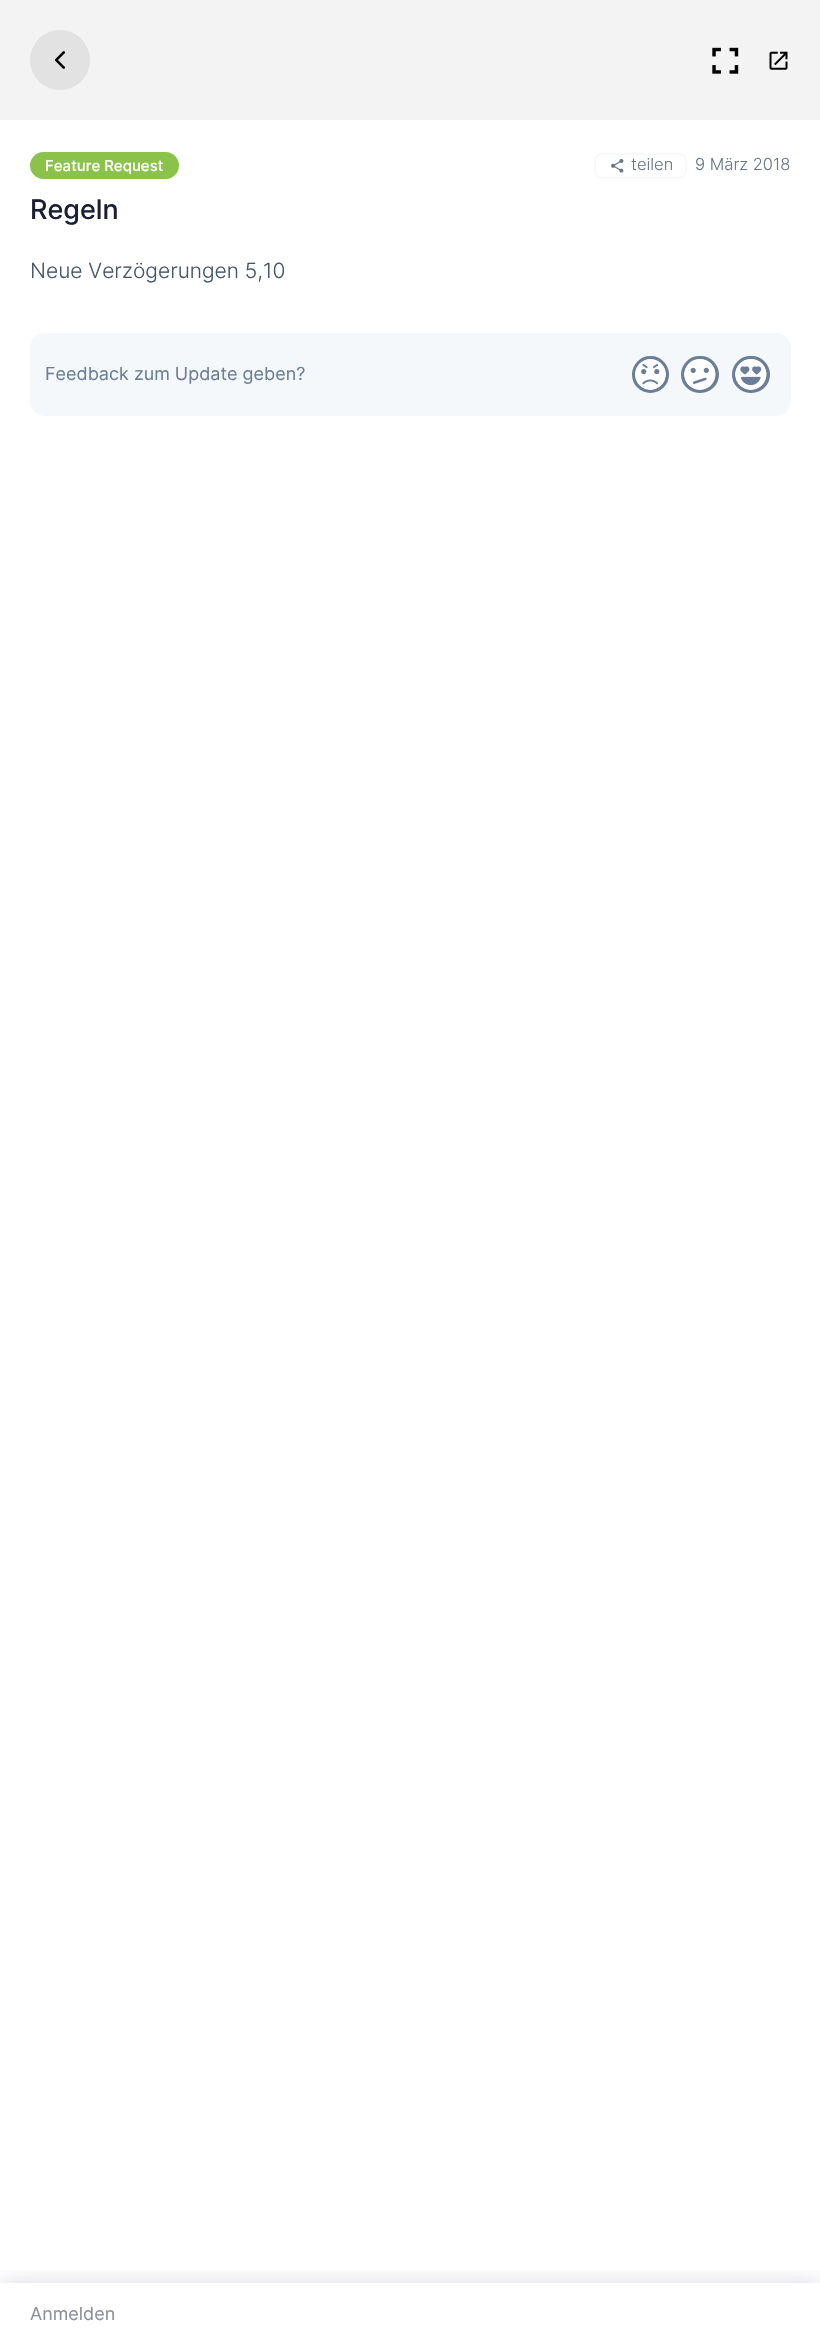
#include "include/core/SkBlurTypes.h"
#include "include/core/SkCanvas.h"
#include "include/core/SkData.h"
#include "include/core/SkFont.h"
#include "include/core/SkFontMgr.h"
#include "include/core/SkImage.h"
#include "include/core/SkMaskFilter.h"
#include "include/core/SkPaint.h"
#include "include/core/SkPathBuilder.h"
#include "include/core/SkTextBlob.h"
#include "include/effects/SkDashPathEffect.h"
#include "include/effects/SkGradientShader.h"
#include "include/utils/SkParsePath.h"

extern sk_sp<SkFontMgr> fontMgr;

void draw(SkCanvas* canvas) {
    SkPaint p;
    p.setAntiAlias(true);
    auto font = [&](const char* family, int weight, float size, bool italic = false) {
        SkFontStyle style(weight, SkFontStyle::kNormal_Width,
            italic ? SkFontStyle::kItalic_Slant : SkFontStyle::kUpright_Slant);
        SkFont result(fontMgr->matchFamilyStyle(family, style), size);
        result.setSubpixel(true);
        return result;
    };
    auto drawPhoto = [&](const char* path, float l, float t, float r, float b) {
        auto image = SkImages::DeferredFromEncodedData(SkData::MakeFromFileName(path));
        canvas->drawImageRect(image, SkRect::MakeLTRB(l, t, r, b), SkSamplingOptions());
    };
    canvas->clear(0xFFFFFFFF);
    p.setColor(0xFFF3F3F3);
    canvas->drawRect(SkRect::MakeLTRB(0, 0, 820, 120), p);
    p.setColor(0xFFE2E2E2);
    canvas->drawCircle(60, 60, 30, p);
    drawPhoto("media/1.png", 55, 51, 65, 69);
    drawPhoto("media/2.png", 712, 47, 739, 74);
    drawPhoto("media/3.png", 769, 51, 788, 70);
    p.setColor(0xFF8BC34A);
    canvas->drawRoundRect(SkRect::MakeLTRB(30, 152, 179, 179), 13.5f, 13.5f, p);
    auto font1 = font("Inter", 500, 15);
    p.setColor(0xFFFFFFFF);
    canvas->drawString("Feature Request", 45, 171, font1, p);
    p.setStyle(SkPaint::kStroke_Style);
    p.setStrokeWidth(2);
    p.setColor(0xFFF7F9FB);
    canvas->drawRoundRect(SkRect::MakeLTRB(595, 154, 686, 178), 7, 7, p);
    drawPhoto("media/4.png", 611, 158, 624, 173);
    auto font2 = font("Inter", 300, 16.5f);
    p.setStyle(SkPaint::kFill_Style);
    p.setColor(0xFF687685);
    canvas->drawString("teilen", 631, 170, font2, p);
    canvas->drawString("9 März 2018", 695, 170, font2, p);
    auto font3 = font("Inter", 500, 27);
    p.setColor(0xFF1A1F36);
    canvas->drawString("Regeln", 30, 219, font3, p);
    auto font4 = font("Inter", 300, 21);
    p.setColor(0xFF425466);
    canvas->drawString("Neue Verzögerungen 5,10", 30, 278, font4, p);
    p.setColor(0xFFF5F8FA);
    canvas->drawRoundRect(SkRect::MakeLTRB(30, 333, 791, 416), 15, 15, p);
    auto font5 = font("Inter", 400, 18);
    p.setColor(0xFF6B7E97);
    canvas->drawString("Feedback zum Update geben?", 45, 380, font5, p);
    canvas->drawCircle(650.5f, 374.5f, 17, p);
    p.setStyle(SkPaint::kStroke_Style);
    p.setStrokeWidth(3);
    canvas->drawCircle(650.5f, 374.5f, 17, p);
    drawPhoto("media/5.png", 635, 359, 666, 390);
    p.setStyle(SkPaint::kFill_Style);
    canvas->drawRoundRect(SkRect::MakeLTRB(682.5f, 357.5f, 717.5f, 391.5f), 17, 17, p);
    p.setStyle(SkPaint::kStroke_Style);
    canvas->drawRoundRect(SkRect::MakeLTRB(682.5f, 357.5f, 717.5f, 391.5f), 17, 17, p);
    drawPhoto("media/6.png", 684, 359, 716, 390);
    p.setStyle(SkPaint::kFill_Style);
    canvas->drawRoundRect(SkRect::MakeLTRB(733.5f, 357.5f, 768.5f, 391.5f), 17, 17, p);
    p.setStyle(SkPaint::kStroke_Style);
    canvas->drawRoundRect(SkRect::MakeLTRB(733.5f, 357.5f, 768.5f, 391.5f), 17, 17, p);
    drawPhoto("media/7.png", 735, 359, 767, 390);
    canvas->save();
    canvas->clipRect(SkRect::MakeLTRB(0, 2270, 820, 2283));
    p.setStyle(SkPaint::kFill_Style);
    p.setColor(0x2E32325D);
    p.setMaskFilter(SkMaskFilter::MakeBlur(kNormal_SkBlurStyle, 11));
    canvas->drawRect(SkRect::MakeLTRB(0, 2283, 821, 2343), p);
    p.setMaskFilter(nullptr);
    canvas->restore();
    p.setColor(0xFF8D8F9B);
    canvas->drawString("Anmelden", 30, 2320, font5, p);
}
